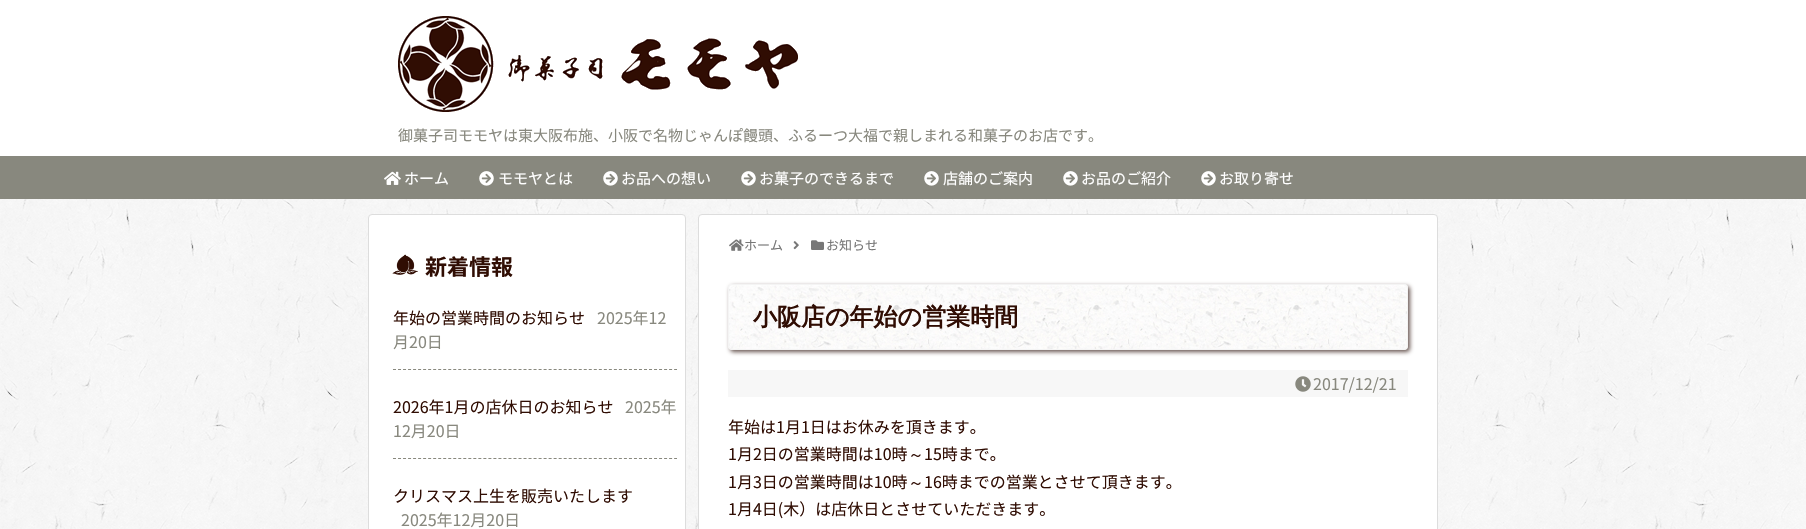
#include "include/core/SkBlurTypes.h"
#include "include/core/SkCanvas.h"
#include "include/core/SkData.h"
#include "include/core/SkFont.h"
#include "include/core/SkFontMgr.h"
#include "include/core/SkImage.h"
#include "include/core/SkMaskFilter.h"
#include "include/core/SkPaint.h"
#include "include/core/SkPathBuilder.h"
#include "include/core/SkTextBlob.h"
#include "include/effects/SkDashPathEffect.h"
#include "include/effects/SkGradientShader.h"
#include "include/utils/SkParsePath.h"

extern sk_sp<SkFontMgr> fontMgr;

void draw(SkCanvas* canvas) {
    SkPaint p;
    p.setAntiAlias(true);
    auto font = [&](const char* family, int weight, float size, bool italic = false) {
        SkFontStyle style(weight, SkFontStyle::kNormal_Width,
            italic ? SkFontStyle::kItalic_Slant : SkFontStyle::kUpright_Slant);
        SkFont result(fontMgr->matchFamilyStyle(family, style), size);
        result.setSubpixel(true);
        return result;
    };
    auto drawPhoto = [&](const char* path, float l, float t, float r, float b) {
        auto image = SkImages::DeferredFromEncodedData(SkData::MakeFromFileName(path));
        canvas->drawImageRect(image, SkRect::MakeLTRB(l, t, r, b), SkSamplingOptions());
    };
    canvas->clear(0xFFFFFFFF);
    drawPhoto("media/1.png", 0, 199, 1806, 529);
    drawPhoto("media/2.png", 398, 16, 798, 112);
    auto font1 = font("Noto Sans JP", 400, 15);
    p.setColor(0xFF88887E);
    canvas->drawString("御菓子司モモヤは東大阪布施、小阪で名物じゃんぽ饅頭、ふるーつ大福で親しまれる和菓子のお店です。", 398, 141, font1, p);
    canvas->drawRect(SkRect::MakeLTRB(0, 156, 1806, 199), p);
    drawPhoto("media/3.png", 384, 171, 401, 185);
    p.setColor(0xFFFFFFFF);
    canvas->drawString("ホーム", 404, 184, font1, p);
    drawPhoto("media/4.png", 479, 171, 494, 186);
    canvas->drawString("モモヤとは", 498, 184, font1, p);
    drawPhoto("media/4.png", 603, 171, 618, 186);
    canvas->drawString("お品への想い", 621, 184, font1, p);
    drawPhoto("media/4.png", 741, 171, 756, 186);
    canvas->drawString("お菓子のできるまで", 759, 184, font1, p);
    drawPhoto("media/4.png", 924, 171, 939, 186);
    canvas->drawString("店舗のご案内", 943, 184, font1, p);
    drawPhoto("media/4.png", 1063, 171, 1078, 186);
    canvas->drawString("お品のご紹介", 1081, 184, font1, p);
    drawPhoto("media/4.png", 1201, 171, 1216, 186);
    canvas->drawString("お取り寄せ", 1219, 184, font1, p);
    canvas->drawRoundRect(SkRect::MakeLTRB(368.5f, 214.5f, 685.5f, 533.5f), 3.5f, 3.5f, p);
    p.setStyle(SkPaint::kStroke_Style);
    p.setStrokeWidth(1);
    p.setColor(0xFFDDDDDD);
    canvas->drawRoundRect(SkRect::MakeLTRB(368.5f, 214.5f, 685.5f, 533.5f), 3.5f, 3.5f, p);
    drawPhoto("media/5.png", 392, 254, 418, 275);
    auto font2 = font("Noto Sans JP", 700, 22);
    p.setStyle(SkPaint::kFill_Style);
    p.setColor(0xFF300D03);
    canvas->drawString("新着情報", 425, 275, font2, p);
    p.setStyle(SkPaint::kStroke_Style);
    p.setColor(0xFF88887E);
    p.setPathEffect(SkDashPathEffect::Make({{3, 2.02f}}, 0));
    canvas->drawPath(SkPathBuilder().moveTo(393, 369.5f).lineTo(677, 369.5f).detach(), p);
    p.setPathEffect(nullptr);
    auto font3 = font("Noto Sans JP", 400, 16);
    p.setStyle(SkPaint::kFill_Style);
    p.setColor(0xFF300D03);
    canvas->drawString("年始の営業時間のお知らせ", 393, 324, font3, p);
    p.setColor(0xFF88887E);
    canvas->drawString("2025年12", 597, 324, font3, p);
    canvas->drawString("月20日", 393, 348, font3, p);
    p.setStyle(SkPaint::kStroke_Style);
    p.setPathEffect(SkDashPathEffect::Make({{3, 2.02f}}, 0));
    canvas->drawPath(SkPathBuilder().moveTo(393, 458.5f).lineTo(677, 458.5f).detach(), p);
    p.setPathEffect(nullptr);
    p.setStyle(SkPaint::kFill_Style);
    p.setColor(0xFF300D03);
    canvas->drawString("2026年1月の店休日のお知らせ", 393, 413, font3, p);
    p.setColor(0xFF88887E);
    canvas->drawString("2025年", 625, 413, font3, p);
    canvas->drawString("12月20日", 393, 437, font3, p);
    p.setColor(0xFF300D03);
    canvas->drawString("クリスマス上生を販売いたします", 393, 502, font3, p);
    p.setColor(0xFF88887E);
    canvas->drawString("2025年12月20日", 401, 526, font3, p);
    p.setColor(0xFFFFFFFF);
    canvas->drawRoundRect(SkRect::MakeLTRB(698.5f, 214.5f, 1437.5f, 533.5f), 3.5f, 3.5f, p);
    p.setStyle(SkPaint::kStroke_Style);
    p.setColor(0xFFDDDDDD);
    canvas->drawRoundRect(SkRect::MakeLTRB(698.5f, 214.5f, 1437.5f, 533.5f), 3.5f, 3.5f, p);
    drawPhoto("media/6.png", 729, 239, 744, 251);
    auto font4 = font("Noto Sans JP", 400, 13);
    p.setStyle(SkPaint::kFill_Style);
    p.setColor(0xFF777777);
    canvas->drawString("ホーム", 744, 250, font4, p);
    drawPhoto("media/7.png", 793, 241, 799, 250);
    drawPhoto("media/8.png", 811, 240, 824, 250);
    canvas->drawString("お知らせ", 826, 250, font4, p);
    p.setColor(0xFF685651);
    p.setMaskFilter(SkMaskFilter::MakeBlur(kNormal_SkBlurStyle, 2));
    canvas->drawRoundRect(SkRect::MakeLTRB(730, 286, 1410, 352), 4, 4, p);
    p.setMaskFilter(nullptr);
    drawPhoto("media/9.png", 728, 284, 1408, 350);
    p.setStyle(SkPaint::kStroke_Style);
    p.setColor(0xFFF4F4F4);
    canvas->drawRoundRect(SkRect::MakeLTRB(728.5f, 284.5f, 1407.5f, 349.5f), 3.5f, 3.5f, p);
    auto font5 = font("WenQuanYi Zen Hei", 700, 24);
    p.setStyle(SkPaint::kFill_Style);
    p.setColor(0xFF300D03);
    canvas->drawString("小阪店の年始の営業時間", 753, 325, font5, p);
    p.setColor(0xFFF7F7F7);
    canvas->drawRect(SkRect::MakeLTRB(728, 370, 1408, 397), p);
    drawPhoto("media/10.png", 1295, 376, 1311, 392);
    p.setColor(0xFF88887E);
    canvas->drawString("2017/12/21", 1313, 390, font3, p);
    p.setColor(0xFF300D03);
    canvas->drawString("年始は1月1日はお休みを頂きます。", 728, 433, font3, p);
    canvas->drawString("1月2日の営業時間は10時", 728, 460, font3, p);
    auto font6 = font("WenQuanYi Zen Hei", 500, 16);
    canvas->drawString("～", 908, 460, font6, p);
    canvas->drawString("15時まで。", 924, 460, font3, p);
    canvas->drawString("1月3日の営業時間は10時", 728, 488, font3, p);
    canvas->drawString("～", 908, 488, font6, p);
    canvas->drawString("16時までの営業とさせて頂きます。", 924, 488, font3, p);
    canvas->drawString("1月4日(木）は店休日とさせていただきます。", 728, 515, font3, p);
}
